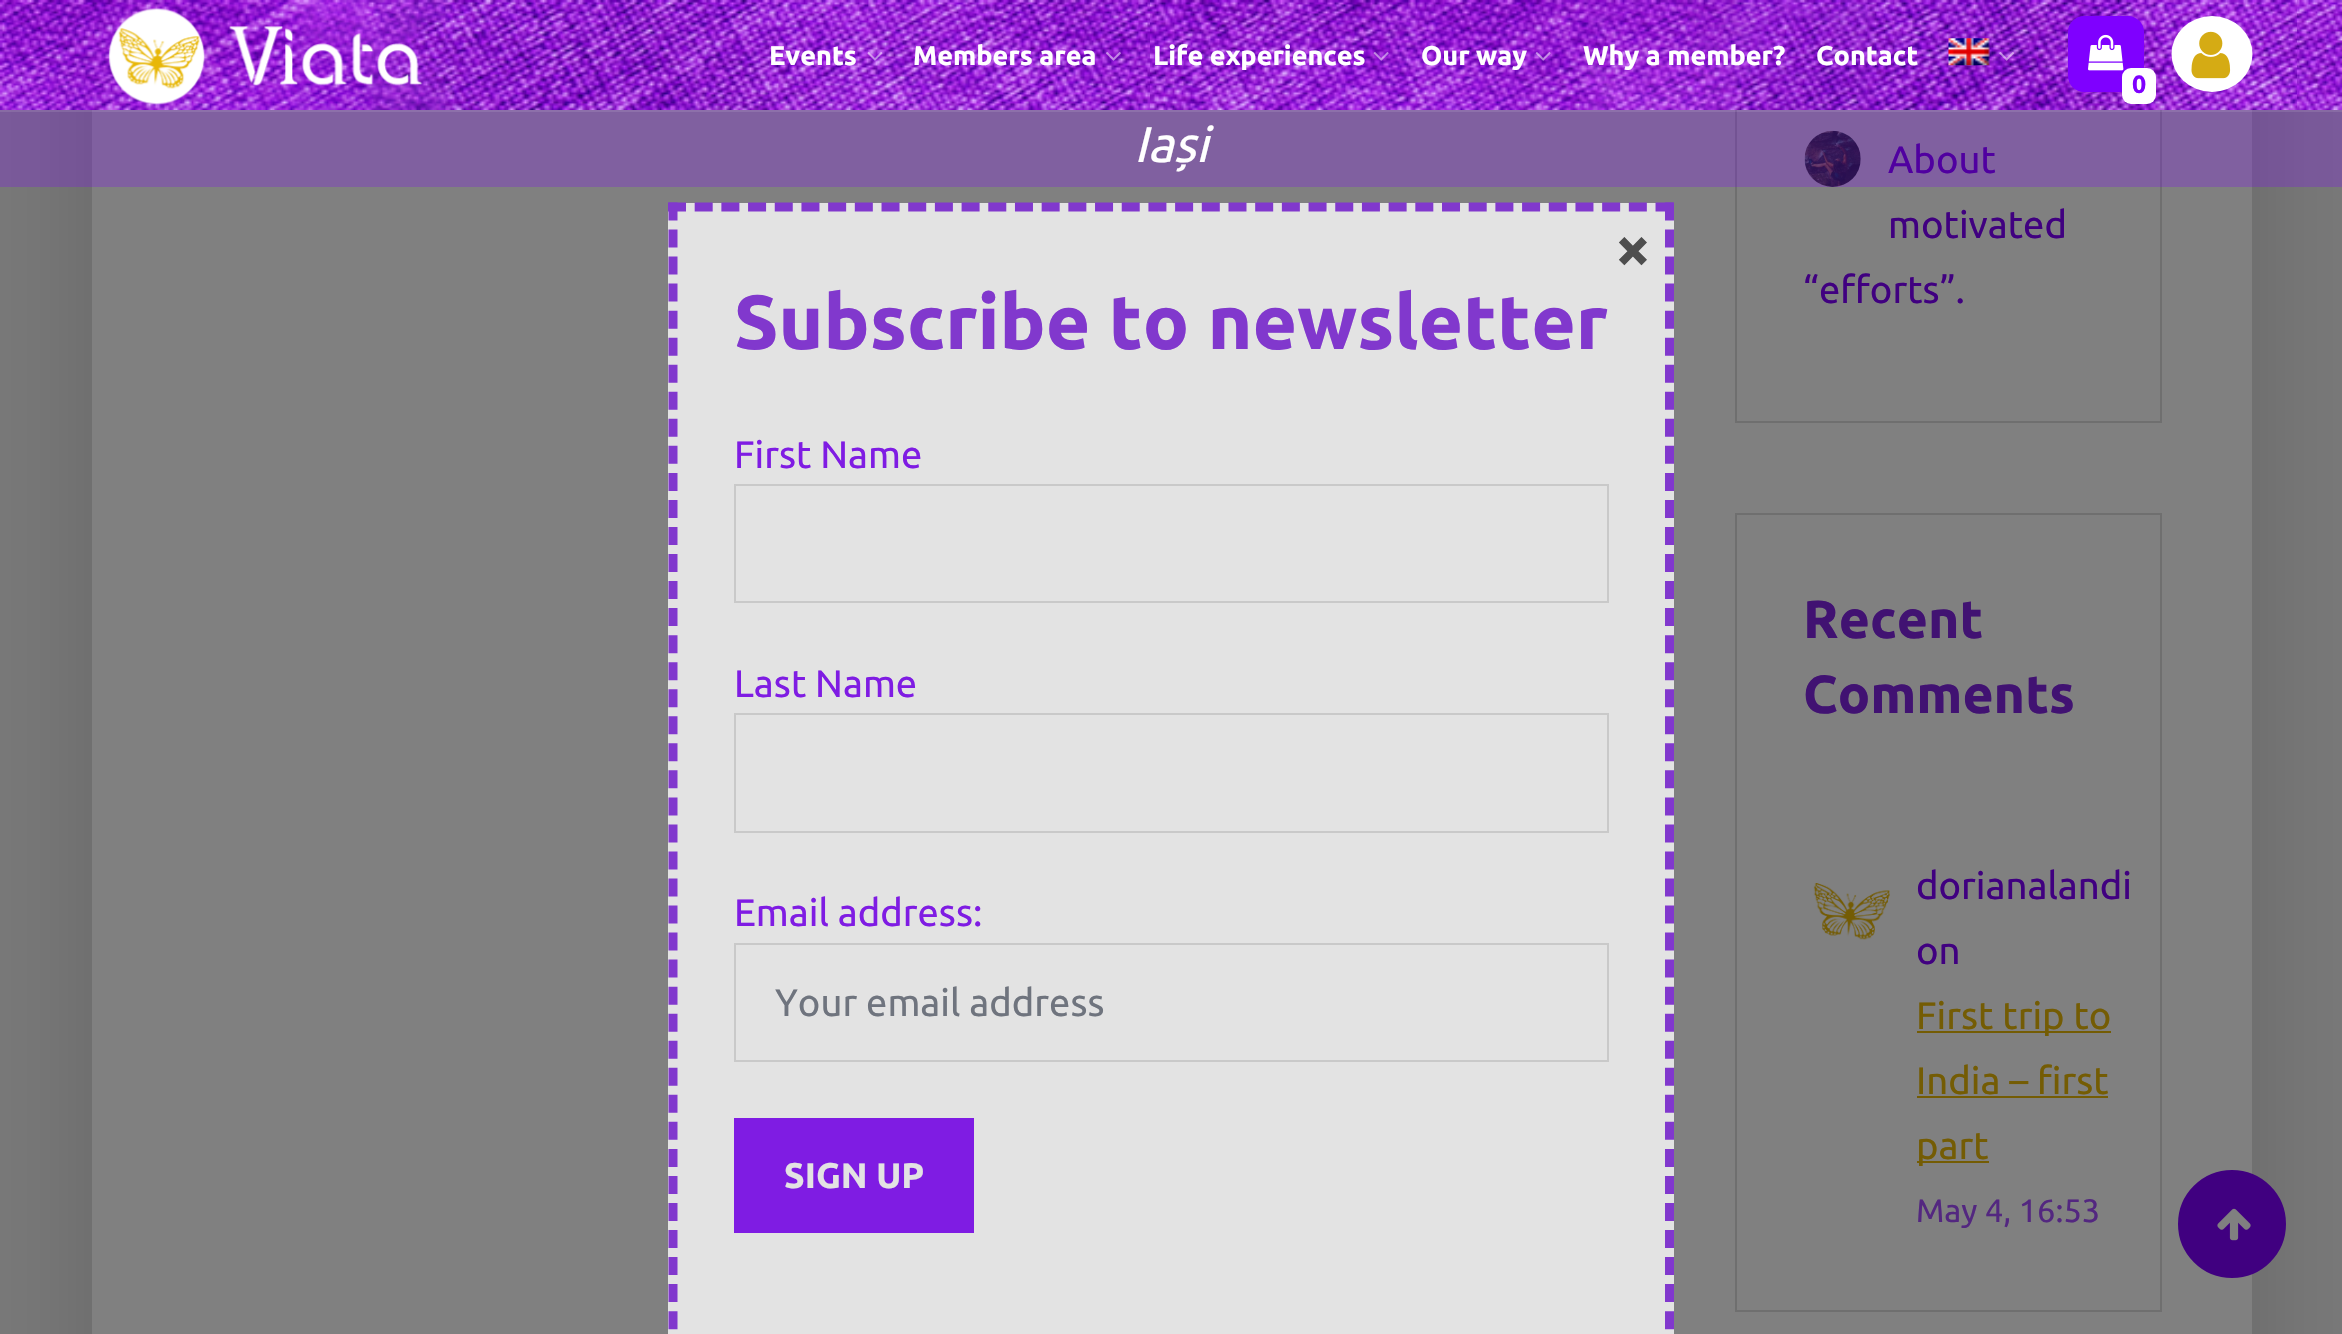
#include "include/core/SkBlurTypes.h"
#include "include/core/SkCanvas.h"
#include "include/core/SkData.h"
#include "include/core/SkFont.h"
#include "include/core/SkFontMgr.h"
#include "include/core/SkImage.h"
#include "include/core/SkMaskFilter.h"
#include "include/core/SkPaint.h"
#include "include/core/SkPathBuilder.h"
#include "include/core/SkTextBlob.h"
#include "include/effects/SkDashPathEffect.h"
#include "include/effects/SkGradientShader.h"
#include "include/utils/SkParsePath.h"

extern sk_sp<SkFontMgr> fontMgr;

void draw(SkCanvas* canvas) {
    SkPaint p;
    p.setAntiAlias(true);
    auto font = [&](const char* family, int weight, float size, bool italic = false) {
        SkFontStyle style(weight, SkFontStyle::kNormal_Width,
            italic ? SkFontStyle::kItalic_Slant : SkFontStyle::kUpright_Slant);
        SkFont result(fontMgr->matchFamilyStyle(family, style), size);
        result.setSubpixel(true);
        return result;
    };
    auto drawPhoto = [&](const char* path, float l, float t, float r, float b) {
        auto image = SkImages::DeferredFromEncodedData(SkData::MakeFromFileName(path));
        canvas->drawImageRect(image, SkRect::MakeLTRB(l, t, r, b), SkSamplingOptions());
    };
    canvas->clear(0xFF797979);
    p.setColor(0x26010101);
    p.setMaskFilter(SkMaskFilter::MakeBlur(kNormal_SkBlurStyle, 56));
    canvas->drawRect(SkRect::MakeLTRB(92, -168, 2252, 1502), p);
    p.setMaskFilter(nullptr);
    p.setColor(0xFF808080);
    canvas->drawRect(SkRect::MakeLTRB(92, 110, 2252, 1334), p);
    p.setStyle(SkPaint::kStroke_Style);
    p.setStrokeWidth(2);
    p.setColor(0xFF6F6F6F);
    canvas->drawRect(SkRect::MakeLTRB(1736, -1, 2161, 422), p);
    drawPhoto("media/1.png", 0, 0, 2342, 110);
    drawPhoto("media/11.png", 1804, 130, 1861, 187);
    auto font1 = font("Ubuntu", 400, 38.25f);
    p.setStyle(SkPaint::kFill_Style);
    p.setColor(0xFF400080);
    canvas->drawString("About", 1888, 173, font1, p);
    p.setColor(0x407F00FF);
    canvas->drawRect(SkRect::MakeLTRB(0, 0, 2342, 187), p);
    p.setColor(0x1AFFFFFF);
    canvas->drawRect(SkRect::MakeLTRB(0, 110, 2342, 112), p);
    drawPhoto("media/2.png", 108, 8, 423, 105);
    auto font2 = font("Ubuntu", 700, 27);
    p.setColor(0xFFFFFFFF);
    canvas->drawString("Events", 769, 65, font2, p);
    drawPhoto("media/3.png", 867, 52, 883, 61);
    canvas->drawString("Members area", 913, 65, font2, p);
    drawPhoto("media/4.png", 1106, 52, 1121, 61);
    canvas->drawString("Life experiences", 1153, 65, font2, p);
    drawPhoto("media/5.png", 1373, 52, 1389, 61);
    canvas->drawString("Our way", 1421, 65, font2, p);
    drawPhoto("media/6.png", 1535, 52, 1551, 61);
    canvas->drawString("Why a member?", 1583, 65, font2, p);
    canvas->drawString("Contact", 1816, 65, font2, p);
    drawPhoto("media/7.png", 1948, 38, 1990, 66);
    drawPhoto("media/8.png", 1999, 52, 2015, 61);
    p.setColor(0xFF7F00FF);
    canvas->drawRoundRect(SkRect::MakeLTRB(2069, 17, 2143, 91), 15, 15, p);
    p.setStyle(SkPaint::kStroke_Style);
    canvas->drawRoundRect(SkRect::MakeLTRB(2069, 17, 2143, 91), 15, 15, p);
    drawPhoto("media/9.png", 2088, 34, 2124, 71);
    p.setStyle(SkPaint::kFill_Style);
    p.setColor(0xFFFFFFFF);
    canvas->drawRoundRect(SkRect::MakeLTRB(2122, 68, 2156, 104), 9, 9, p);
    auto font3 = font("Ubuntu", 700, 25);
    p.setColor(0xFF7F00FF);
    canvas->drawString("0", 2132, 93, font3, p);
    p.setColor(0xFFFFFFFF);
    canvas->drawOval(SkRect::MakeLTRB(2171.5f, 16, 2252.5f, 92), p);
    drawPhoto("media/10.png", 2191, 31, 2231, 79);
    auto font4 = font("Ubuntu", 400, 50, true);
    canvas->drawString("Iași", 1134, 162, font4, p);
    p.setColor(0xFFE3E3E3);
    canvas->drawRect(SkRect::MakeLTRB(668, 203, 1674, 1334), p);
    p.setStyle(SkPaint::kStroke_Style);
    p.setStrokeWidth(9);
    p.setColor(0xFF8138CD);
    p.setPathEffect(SkDashPathEffect::Make({{18, 8.69f}}, 0));
    canvas->drawPath(SkPathBuilder().moveTo(668, 207).lineTo(1674, 207).detach(), p);
    p.setPathEffect(nullptr);
    p.setPathEffect(SkDashPathEffect::Make({{18, 9.04f}}, 0));
    canvas->drawPath(SkPathBuilder().moveTo(1669.5f, 202.5f).lineTo(1669.5f, 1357).detach(), p);
    p.setPathEffect(nullptr);
    p.setPathEffect(SkDashPathEffect::Make({{18, 9.04f}}, 0));
    canvas->drawPath(SkPathBuilder().moveTo(673, 202.5f).lineTo(673, 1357).detach(), p);
    p.setPathEffect(nullptr);
    auto font5 = font("Ubuntu", 700, 63);
    p.setStyle(SkPaint::kFill_Style);
    p.setColor(0xFF4E4E4E);
    canvas->drawString("×", 1615, 270, font5, p);
    auto font6 = font("Ubuntu", 700, 76.5f);
    p.setColor(0xFF8138CD);
    canvas->drawString("Subscribe to newsletter", 734, 349, font6, p);
    p.setColor(0xFF7F1CE3);
    canvas->drawString("First Name", 734, 468, font1, p);
    p.setStyle(SkPaint::kStroke_Style);
    p.setStrokeWidth(2);
    p.setColor(0xFFC9C9C9);
    canvas->drawRect(SkRect::MakeLTRB(735, 485, 1608, 602), p);
    p.setStyle(SkPaint::kFill_Style);
    p.setColor(0xFF7F1CE3);
    canvas->drawString("Last Name", 734, 697, font1, p);
    p.setStyle(SkPaint::kStroke_Style);
    p.setColor(0xFFC9C9C9);
    canvas->drawRect(SkRect::MakeLTRB(735, 714, 1608, 832), p);
    p.setStyle(SkPaint::kFill_Style);
    p.setColor(0xFF7F1CE3);
    canvas->drawString("Email address:", 734, 926, font1, p);
    p.setStyle(SkPaint::kStroke_Style);
    p.setColor(0xFFC9C9C9);
    canvas->drawRect(SkRect::MakeLTRB(735, 944, 1608, 1061), p);
    p.setStyle(SkPaint::kFill_Style);
    p.setColor(0xFF6F747E);
    canvas->drawString("Your email address", 775, 1016, font1, p);
    p.setColor(0xFF7F1CE3);
    canvas->drawRect(SkRect::MakeLTRB(734, 1118, 974, 1233), p);
    auto font7 = font("Ubuntu", 700, 35.5f);
    p.setColor(0xFFE3E3E3);
    canvas->drawString("SIGN UP", 784, 1188, font7, p);
    p.setColor(0xFF400080);
    canvas->drawString("motivated", 1888, 238, font1, p);
    canvas->drawString("“efforts”.", 1803, 303, font1, p);
    p.setStyle(SkPaint::kStroke_Style);
    p.setColor(0xFF6F6F6F);
    canvas->drawRect(SkRect::MakeLTRB(1736, 514, 2161, 1311), p);
    auto font8 = font("Ubuntu", 700, 53.5f);
    p.setStyle(SkPaint::kFill_Style);
    p.setColor(0xFF411272);
    canvas->drawString("Recent", 1803, 638, font8, p);
    canvas->drawString("Comments", 1803, 713, font8, p);
    drawPhoto("media/12.png", 1813, 883, 1890, 940);
    p.setColor(0xFF400080);
    canvas->drawString("dorianalandi", 1916, 899, font1, p);
    canvas->drawString("on", 1916, 964, font1, p);
    p.setColor(0xFF745C04);
    canvas->drawRect(SkRect::MakeLTRB(1917, 1031, 2111, 1033), p);
    canvas->drawString("First trip to", 1916, 1029, font1, p);
    canvas->drawString("India – first", 1916, 1094, font1, p);
    canvas->drawRect(SkRect::MakeLTRB(1917, 1096, 2108, 1098), p);
    canvas->drawRect(SkRect::MakeLTRB(1917, 1161, 1989, 1163), p);
    canvas->drawString("part", 1916, 1159, font1, p);
    auto font9 = font("Ubuntu", 400, 32.5f);
    p.setColor(0xFF532780);
    canvas->drawString("May 4, 16:53", 1916, 1222, font9, p);
    p.setColor(0xFF400080);
    canvas->drawCircle(2232, 1224, 53, p);
    p.setStyle(SkPaint::kStroke_Style);
    canvas->drawCircle(2232, 1224, 53, p);
    drawPhoto("media/13.png", 2217, 1208, 2251, 1241);
}
